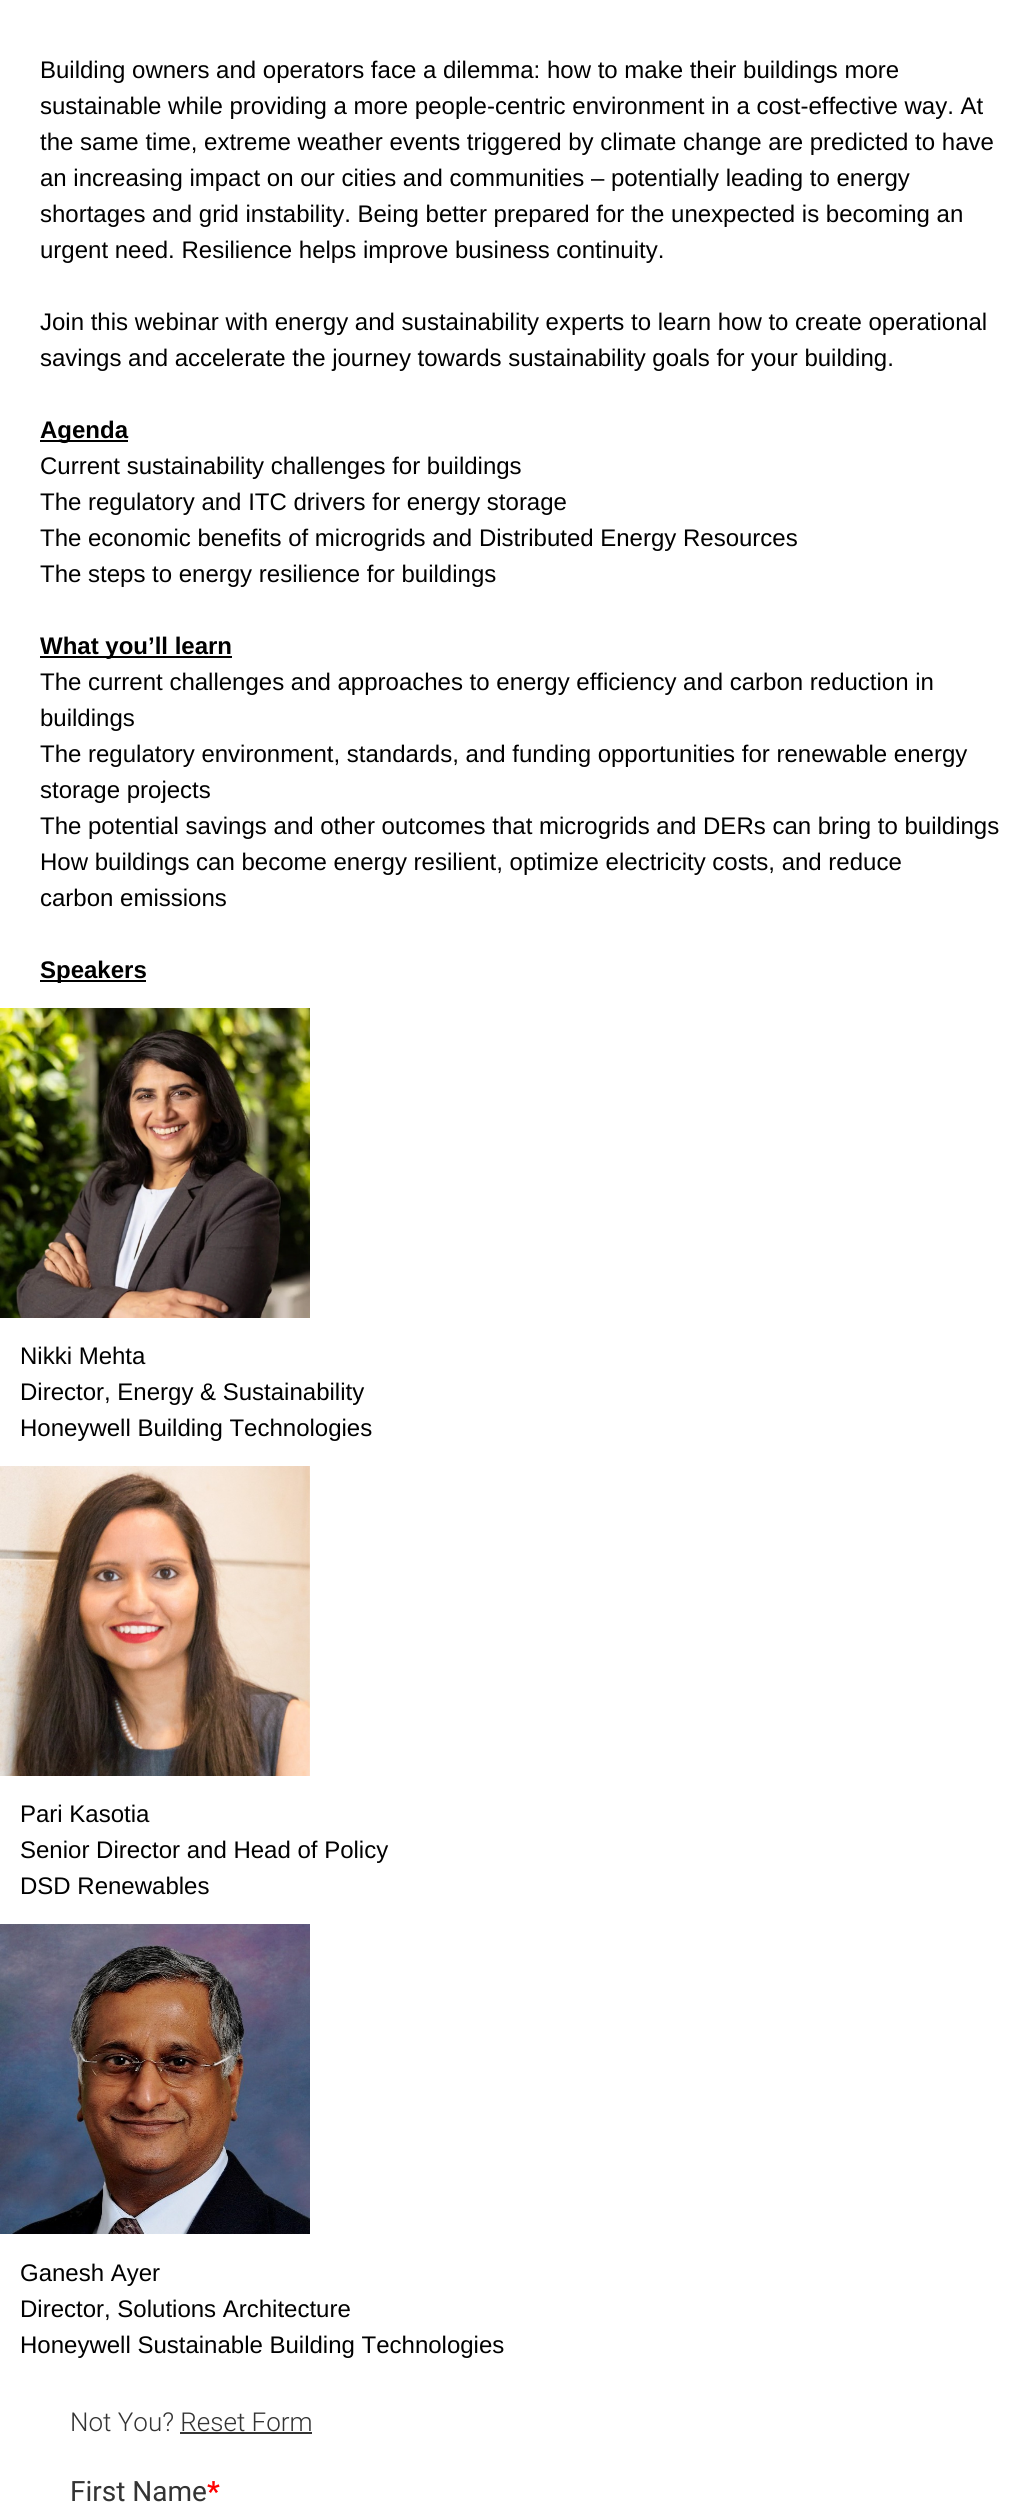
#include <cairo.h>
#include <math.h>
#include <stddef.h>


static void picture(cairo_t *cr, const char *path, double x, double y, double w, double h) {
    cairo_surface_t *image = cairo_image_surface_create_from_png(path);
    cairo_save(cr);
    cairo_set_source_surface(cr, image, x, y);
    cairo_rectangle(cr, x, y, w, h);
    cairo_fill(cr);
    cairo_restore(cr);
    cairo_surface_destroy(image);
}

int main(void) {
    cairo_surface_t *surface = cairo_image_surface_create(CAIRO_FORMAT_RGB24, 1034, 2511);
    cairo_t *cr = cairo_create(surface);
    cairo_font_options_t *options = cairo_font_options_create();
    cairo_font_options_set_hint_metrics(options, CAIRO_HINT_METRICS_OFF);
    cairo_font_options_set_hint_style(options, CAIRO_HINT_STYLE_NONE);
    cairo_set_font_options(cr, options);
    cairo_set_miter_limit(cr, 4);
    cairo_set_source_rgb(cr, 1, 1, 1);
    cairo_paint(cr);
    cairo_select_font_face(cr, "Liberation Sans", CAIRO_FONT_SLANT_NORMAL, CAIRO_FONT_WEIGHT_NORMAL);
    cairo_set_font_size(cr, 24);
    cairo_set_source_rgb(cr, 0, 0, 0);
    cairo_move_to(cr, 40, 78);
    cairo_show_text(cr, "Building owners and operators face a dilemma: how to make their buildings more");
    cairo_move_to(cr, 40, 114);
    cairo_show_text(cr, "sustainable while providing a more people-centric environment in a cost-effective way. At");
    cairo_move_to(cr, 40, 150);
    cairo_show_text(cr, "the same time, extreme weather events triggered by climate change are predicted to have");
    cairo_move_to(cr, 40, 186);
    cairo_show_text(cr, "an increasing impact on our cities and communities – potentially leading to energy");
    cairo_move_to(cr, 40, 222);
    cairo_show_text(cr, "shortages and grid instability. Being better prepared for the unexpected is becoming an");
    cairo_move_to(cr, 40, 258);
    cairo_show_text(cr, "urgent need. Resilience helps improve business continuity.");
    cairo_move_to(cr, 40, 330);
    cairo_show_text(cr, "Join this webinar with energy and sustainability experts to learn how to create operational");
    cairo_move_to(cr, 40, 366);
    cairo_show_text(cr, "savings and accelerate the journey towards sustainability goals for your building.");
    cairo_rectangle(cr, 40, 440, 88, 2);
    cairo_fill(cr);
    cairo_select_font_face(cr, "Liberation Sans", CAIRO_FONT_SLANT_NORMAL, CAIRO_FONT_WEIGHT_BOLD);
    cairo_move_to(cr, 40, 438);
    cairo_show_text(cr, "Agenda");
    cairo_select_font_face(cr, "Liberation Sans", CAIRO_FONT_SLANT_NORMAL, CAIRO_FONT_WEIGHT_NORMAL);
    cairo_move_to(cr, 40, 474);
    cairo_show_text(cr, "Current sustainability challenges for buildings");
    cairo_move_to(cr, 40, 510);
    cairo_show_text(cr, "The regulatory and ITC drivers for energy storage");
    cairo_move_to(cr, 40, 546);
    cairo_show_text(cr, "The economic benefits of microgrids and Distributed Energy Resources");
    cairo_move_to(cr, 40, 582);
    cairo_show_text(cr, "The steps to energy resilience for buildings");
    cairo_rectangle(cr, 40, 656, 192, 2);
    cairo_fill(cr);
    cairo_select_font_face(cr, "Liberation Sans", CAIRO_FONT_SLANT_NORMAL, CAIRO_FONT_WEIGHT_BOLD);
    cairo_move_to(cr, 40, 654);
    cairo_show_text(cr, "What you’ll learn");
    cairo_select_font_face(cr, "Liberation Sans", CAIRO_FONT_SLANT_NORMAL, CAIRO_FONT_WEIGHT_NORMAL);
    cairo_move_to(cr, 40, 690);
    cairo_show_text(cr, "The current challenges and approaches to energy efficiency and carbon reduction in");
    cairo_move_to(cr, 40, 726);
    cairo_show_text(cr, "buildings");
    cairo_move_to(cr, 40, 762);
    cairo_show_text(cr, "The regulatory environment, standards, and funding opportunities for renewable energy");
    cairo_move_to(cr, 40, 798);
    cairo_show_text(cr, "storage projects");
    cairo_move_to(cr, 40, 834);
    cairo_show_text(cr, "The potential savings and other outcomes that microgrids and DERs can bring to buildings");
    cairo_move_to(cr, 40, 870);
    cairo_show_text(cr, "How buildings can become energy resilient, optimize electricity costs, and reduce");
    cairo_move_to(cr, 40, 906);
    cairo_show_text(cr, "carbon emissions");
    cairo_rectangle(cr, 40, 980, 106, 2);
    cairo_fill(cr);
    cairo_select_font_face(cr, "Liberation Sans", CAIRO_FONT_SLANT_NORMAL, CAIRO_FONT_WEIGHT_BOLD);
    cairo_move_to(cr, 40, 978);
    cairo_show_text(cr, "Speakers");
    picture(cr, "img1.png", 0, 1008, 310, 310);
    cairo_select_font_face(cr, "Liberation Sans", CAIRO_FONT_SLANT_NORMAL, CAIRO_FONT_WEIGHT_NORMAL);
    cairo_move_to(cr, 20, 1364);
    cairo_show_text(cr, "Nikki Mehta");
    cairo_move_to(cr, 20, 1400);
    cairo_show_text(cr, "Director, Energy & Sustainability");
    cairo_move_to(cr, 20, 1436);
    cairo_show_text(cr, "Honeywell Building Technologies");
    picture(cr, "img2.png", 0, 1466, 310, 310);
    cairo_move_to(cr, 20, 1822);
    cairo_show_text(cr, "Pari Kasotia");
    cairo_move_to(cr, 20, 1858);
    cairo_show_text(cr, "Senior Director and Head of Policy");
    cairo_move_to(cr, 20, 1894);
    cairo_show_text(cr, "DSD Renewables");
    picture(cr, "img3.png", 0, 1924, 310, 310);
    cairo_move_to(cr, 20, 2281);
    cairo_show_text(cr, "Ganesh Ayer");
    cairo_move_to(cr, 20, 2317);
    cairo_show_text(cr, "Director, Solutions Architecture");
    cairo_move_to(cr, 20, 2353);
    cairo_show_text(cr, "Honeywell Sustainable Building Technologies");
    cairo_select_font_face(cr, "Roboto Light", CAIRO_FONT_SLANT_NORMAL, CAIRO_FONT_WEIGHT_NORMAL);
    cairo_set_font_size(cr, 26);
    cairo_set_source_rgb(cr, 0.2, 0.2, 0.2);
    cairo_move_to(cr, 70, 2431);
    cairo_show_text(cr, "Not You? Reset Form");
    cairo_rectangle(cr, 180, 2432, 132, 2);
    cairo_fill(cr);
    cairo_select_font_face(cr, "Roboto", CAIRO_FONT_SLANT_NORMAL, CAIRO_FONT_WEIGHT_NORMAL);
    cairo_set_font_size(cr, 28);
    cairo_move_to(cr, 70, 2501);
    cairo_show_text(cr, "First Name");
    cairo_select_font_face(cr, "Roboto", CAIRO_FONT_SLANT_NORMAL, CAIRO_FONT_WEIGHT_BOLD);
    cairo_set_source_rgb(cr, 1, 0, 0);
    cairo_move_to(cr, 207, 2501);
    cairo_show_text(cr, "*");
    cairo_surface_write_to_png(surface, "page.png");
    cairo_font_options_destroy(options);
    cairo_destroy(cr);
    cairo_surface_destroy(surface);
    return 0;
}
